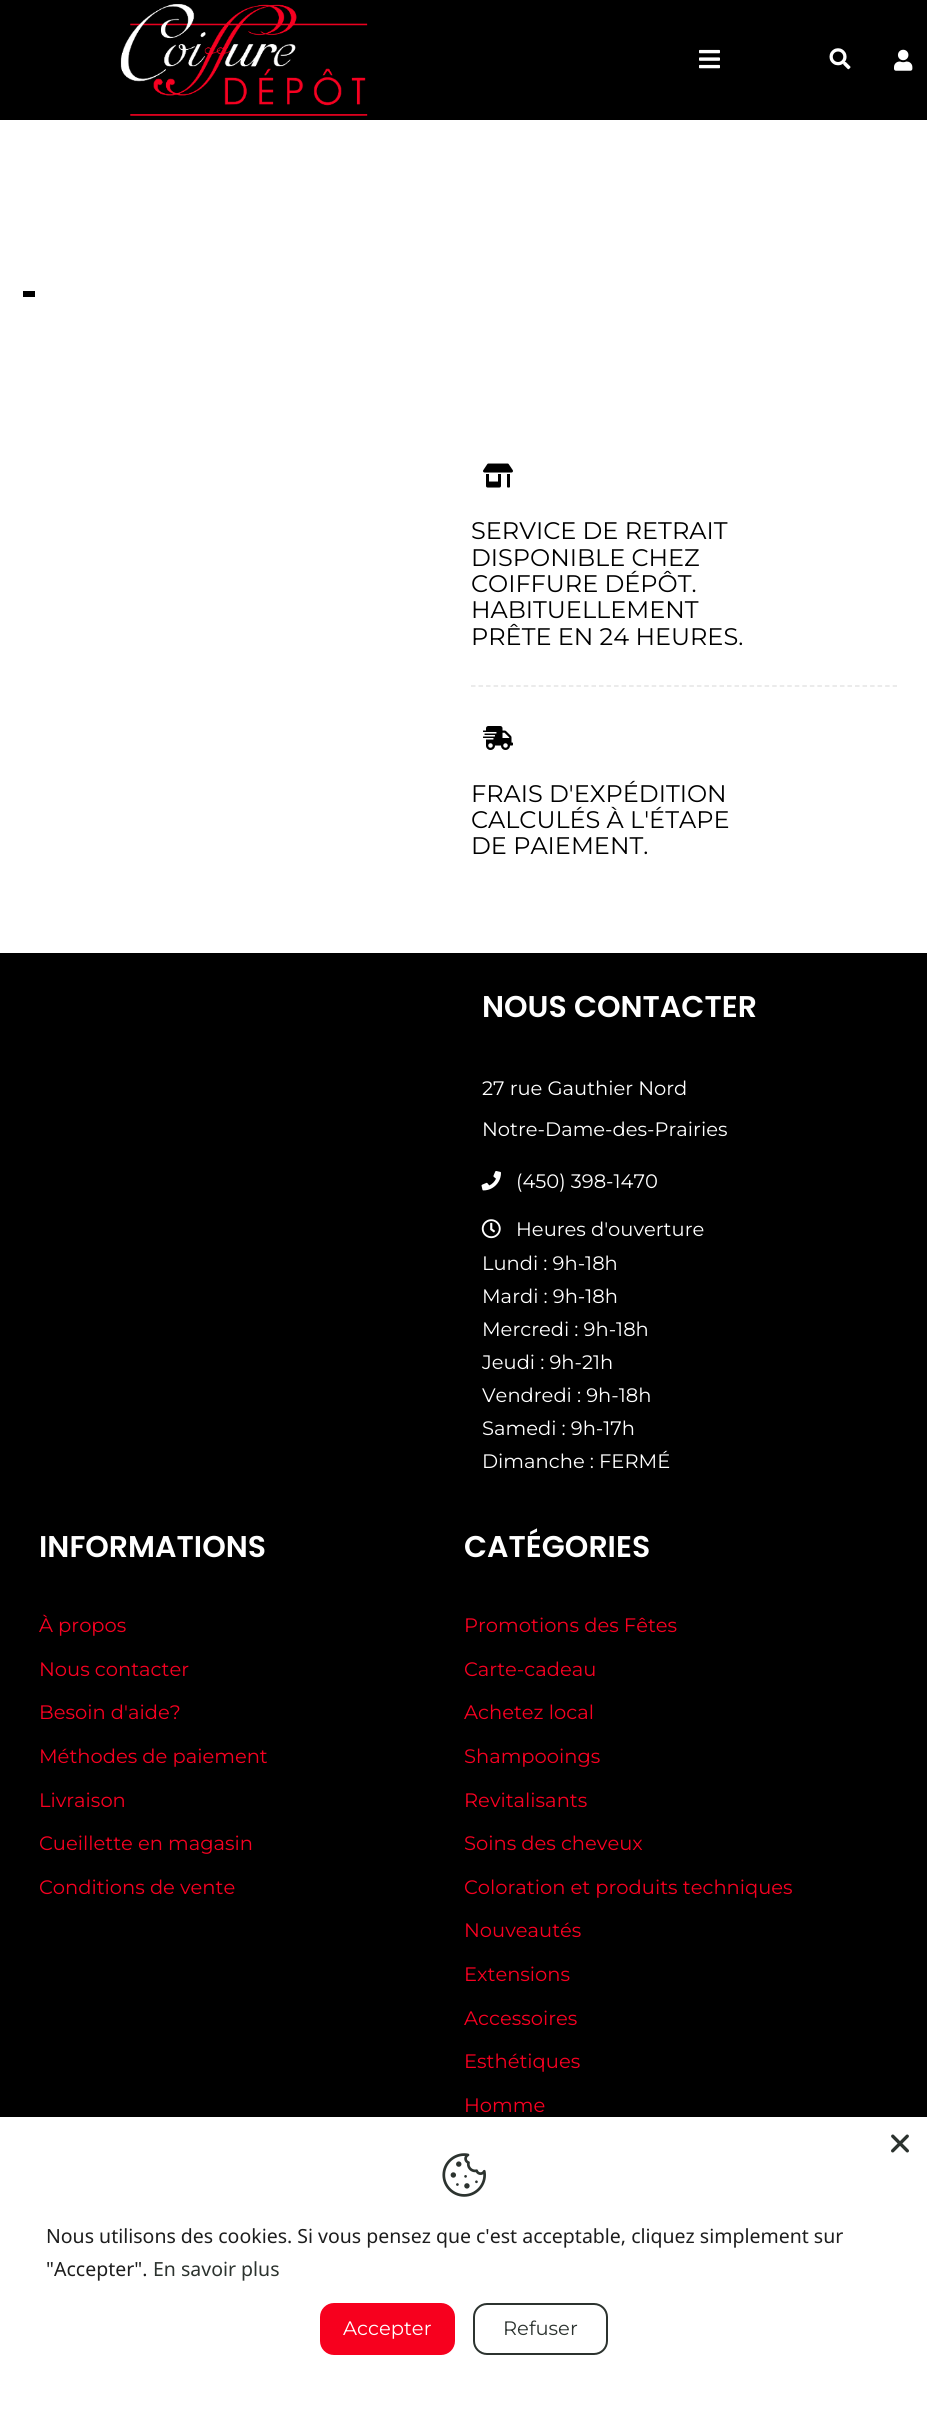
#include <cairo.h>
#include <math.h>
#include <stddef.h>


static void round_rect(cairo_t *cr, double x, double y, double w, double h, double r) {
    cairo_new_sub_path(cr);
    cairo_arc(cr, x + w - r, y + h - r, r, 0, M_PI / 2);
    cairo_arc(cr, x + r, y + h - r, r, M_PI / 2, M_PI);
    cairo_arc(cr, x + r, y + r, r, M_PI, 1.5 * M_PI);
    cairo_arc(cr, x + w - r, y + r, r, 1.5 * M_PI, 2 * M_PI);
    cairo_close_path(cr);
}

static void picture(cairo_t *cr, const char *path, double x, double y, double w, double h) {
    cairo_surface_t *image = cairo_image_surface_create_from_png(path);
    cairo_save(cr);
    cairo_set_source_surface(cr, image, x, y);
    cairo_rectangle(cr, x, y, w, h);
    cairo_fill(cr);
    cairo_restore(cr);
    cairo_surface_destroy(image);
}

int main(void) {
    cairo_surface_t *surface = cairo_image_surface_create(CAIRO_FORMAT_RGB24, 927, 2434);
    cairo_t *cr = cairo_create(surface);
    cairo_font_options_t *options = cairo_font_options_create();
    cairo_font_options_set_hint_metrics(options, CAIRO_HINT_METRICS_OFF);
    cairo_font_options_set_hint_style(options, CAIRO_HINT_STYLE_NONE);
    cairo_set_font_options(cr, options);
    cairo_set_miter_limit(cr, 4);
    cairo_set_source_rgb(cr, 1, 1, 1);
    cairo_paint(cr);
    cairo_set_source_rgb(cr, 0, 0, 0);
    cairo_rectangle(cr, 0, 0, 927, 120);
    cairo_fill(cr);
    picture(cr, "img1.png", 120, 4, 248, 112);
    picture(cr, "img2.png", 699, 49, 21, 20);
    picture(cr, "img3.png", 829, 48, 22, 22);
    picture(cr, "img4.png", 894, 49, 19, 22);
    cairo_rectangle(cr, 23, 291, 12, 6);
    cairo_fill(cr);
    cairo_new_path(cr);
    cairo_move_to(cr, 471, 686);
    cairo_line_to(cr, 897, 686);
    cairo_set_source_rgb(cr, 0.894, 0.894, 0.894);
    cairo_set_line_width(cr, 1.5);
    cairo_set_dash(cr, (double[]){4.5, 3.03}, 2, 0);
    cairo_stroke(cr);
    picture(cr, "img5.png", 483, 463, 30, 25);
    cairo_select_font_face(cr, "Montserrat Thin", CAIRO_FONT_SLANT_NORMAL, CAIRO_FONT_WEIGHT_NORMAL);
    cairo_set_font_size(cr, 24);
    cairo_set_source_rgb(cr, 0, 0, 0);
    cairo_move_to(cr, 471, 539);
    cairo_show_text(cr, "SERVICE DE RETRAIT");
    cairo_move_to(cr, 471, 566);
    cairo_show_text(cr, "DISPONIBLE CHEZ");
    cairo_move_to(cr, 471, 592);
    cairo_show_text(cr, "COIFFURE DÉPÔT.");
    cairo_move_to(cr, 471, 618);
    cairo_show_text(cr, "HABITUELLEMENT");
    cairo_move_to(cr, 471, 645);
    cairo_show_text(cr, "PRÊTE EN 24 HEURES.");
    picture(cr, "img6.png", 483, 726, 30, 24);
    cairo_move_to(cr, 471, 802);
    cairo_show_text(cr, "FRAIS D'EXPÉDITION");
    cairo_move_to(cr, 471, 828);
    cairo_show_text(cr, "CALCULÉS À L'ÉTAPE");
    cairo_move_to(cr, 471, 854);
    cairo_show_text(cr, "DE PAIEMENT.");
    cairo_rectangle(cr, 0, 953, 927, 1164);
    cairo_fill(cr);
    cairo_select_font_face(cr, "Poppins SemiBold", CAIRO_FONT_SLANT_NORMAL, CAIRO_FONT_WEIGHT_NORMAL);
    cairo_set_font_size(cr, 30);
    cairo_set_source_rgb(cr, 1, 1, 1);
    cairo_move_to(cr, 482, 1017);
    cairo_show_text(cr, "NOUS CONTACTER");
    cairo_select_font_face(cr, "Montserrat Thin", CAIRO_FONT_SLANT_NORMAL, CAIRO_FONT_WEIGHT_NORMAL);
    cairo_set_font_size(cr, 19.5);
    cairo_move_to(cr, 482, 1095);
    cairo_show_text(cr, "27 rue Gauthier Nord");
    cairo_move_to(cr, 482, 1136);
    cairo_show_text(cr, "Notre-Dame-des-Prairies");
    picture(cr, "img7.png", 481, 1171, 20, 20);
    cairo_move_to(cr, 516, 1188);
    cairo_show_text(cr, "(450) 398-1470");
    picture(cr, "img8.png", 481, 1219, 20, 20);
    cairo_move_to(cr, 516, 1236);
    cairo_show_text(cr, "Heures d'ouverture");
    cairo_move_to(cr, 482, 1270);
    cairo_show_text(cr, "Lundi : 9h-18h");
    cairo_move_to(cr, 482, 1303);
    cairo_show_text(cr, "Mardi : 9h-18h");
    cairo_move_to(cr, 482, 1336);
    cairo_show_text(cr, "Mercredi : 9h-18h");
    cairo_move_to(cr, 482, 1369);
    cairo_show_text(cr, "Jeudi : 9h-21h");
    cairo_move_to(cr, 482, 1402);
    cairo_show_text(cr, "Vendredi : 9h-18h");
    cairo_move_to(cr, 482, 1435);
    cairo_show_text(cr, "Samedi : 9h-17h");
    cairo_move_to(cr, 482, 1468);
    cairo_show_text(cr, "Dimanche : FERMÉ");
    cairo_select_font_face(cr, "Poppins SemiBold", CAIRO_FONT_SLANT_NORMAL, CAIRO_FONT_WEIGHT_NORMAL);
    cairo_set_font_size(cr, 30);
    cairo_move_to(cr, 39, 1557);
    cairo_show_text(cr, "INFORMATIONS");
    cairo_select_font_face(cr, "Montserrat Thin", CAIRO_FONT_SLANT_NORMAL, CAIRO_FONT_WEIGHT_NORMAL);
    cairo_set_font_size(cr, 19.5);
    cairo_set_source_rgb(cr, 0.969, 0, 0.129);
    cairo_move_to(cr, 39, 1632);
    cairo_show_text(cr, "À propos");
    cairo_move_to(cr, 39, 1676);
    cairo_show_text(cr, "Nous contacter");
    cairo_move_to(cr, 39, 1719);
    cairo_show_text(cr, "Besoin d'aide?");
    cairo_move_to(cr, 39, 1763);
    cairo_show_text(cr, "Méthodes de paiement");
    cairo_move_to(cr, 39, 1807);
    cairo_show_text(cr, "Livraison");
    cairo_move_to(cr, 39, 1850);
    cairo_show_text(cr, "Cueillette en magasin");
    cairo_move_to(cr, 39, 1894);
    cairo_show_text(cr, "Conditions de vente");
    cairo_select_font_face(cr, "Poppins SemiBold", CAIRO_FONT_SLANT_NORMAL, CAIRO_FONT_WEIGHT_NORMAL);
    cairo_set_font_size(cr, 30);
    cairo_set_source_rgb(cr, 1, 1, 1);
    cairo_move_to(cr, 464, 1557);
    cairo_show_text(cr, "CATÉGORIES");
    cairo_select_font_face(cr, "Montserrat Thin", CAIRO_FONT_SLANT_NORMAL, CAIRO_FONT_WEIGHT_NORMAL);
    cairo_set_font_size(cr, 19.5);
    cairo_set_source_rgb(cr, 0.969, 0, 0.129);
    cairo_move_to(cr, 464, 1632);
    cairo_show_text(cr, "Promotions des Fêtes");
    cairo_move_to(cr, 464, 1676);
    cairo_show_text(cr, "Carte-cadeau");
    cairo_move_to(cr, 464, 1719);
    cairo_show_text(cr, "Achetez local");
    cairo_move_to(cr, 464, 1763);
    cairo_show_text(cr, "Shampooings");
    cairo_move_to(cr, 464, 1807);
    cairo_show_text(cr, "Revitalisants");
    cairo_move_to(cr, 464, 1850);
    cairo_show_text(cr, "Soins des cheveux");
    cairo_move_to(cr, 464, 1894);
    cairo_show_text(cr, "Coloration et produits techniques");
    cairo_move_to(cr, 464, 1937);
    cairo_show_text(cr, "Nouveautés");
    cairo_move_to(cr, 464, 1981);
    cairo_show_text(cr, "Extensions");
    cairo_move_to(cr, 464, 2025);
    cairo_show_text(cr, "Accessoires");
    cairo_move_to(cr, 464, 2068);
    cairo_show_text(cr, "Esthétiques");
    cairo_move_to(cr, 464, 2112);
    cairo_show_text(cr, "Homme");
    picture(cr, "img9.png", 891, 2134, 18, 19);
    picture(cr, "img10.png", 442, 2153, 44, 44);
    cairo_select_font_face(cr, "Noto Sans", CAIRO_FONT_SLANT_NORMAL, CAIRO_FONT_WEIGHT_NORMAL);
    cairo_set_source_rgb(cr, 0.114, 0.114, 0.114);
    cairo_move_to(cr, 46, 2243);
    cairo_show_text(cr, "Nous utilisons des cookies. Si vous pensez que c'est acceptable, cliquez simplement sur");
    cairo_move_to(cr, 46, 2276);
    cairo_show_text(cr, "\"Accepter\".");
    cairo_set_source_rgb(cr, 0.173, 0.2, 0.184);
    cairo_move_to(cr, 153, 2276);
    cairo_show_text(cr, "En savoir plus");
    cairo_set_source_rgb(cr, 0.965, 0, 0.118);
    round_rect(cr, 320, 2303, 135, 52, 14);
    cairo_fill(cr);
    cairo_select_font_face(cr, "Montserrat Thin", CAIRO_FONT_SLANT_NORMAL, CAIRO_FONT_WEIGHT_NORMAL);
    cairo_set_source_rgb(cr, 1, 1, 1);
    cairo_move_to(cr, 343, 2335);
    cairo_show_text(cr, "Accepter");
    round_rect(cr, 474, 2304, 133, 50, 13);
    cairo_set_source_rgb(cr, 0.173, 0.2, 0.184);
    cairo_set_line_width(cr, 2);
    cairo_set_dash(cr, NULL, 0, 0);
    cairo_stroke(cr);
    cairo_move_to(cr, 503, 2335);
    cairo_show_text(cr, "Refuser");
    cairo_surface_write_to_png(surface, "page.png");
    cairo_font_options_destroy(options);
    cairo_destroy(cr);
    cairo_surface_destroy(surface);
    return 0;
}
